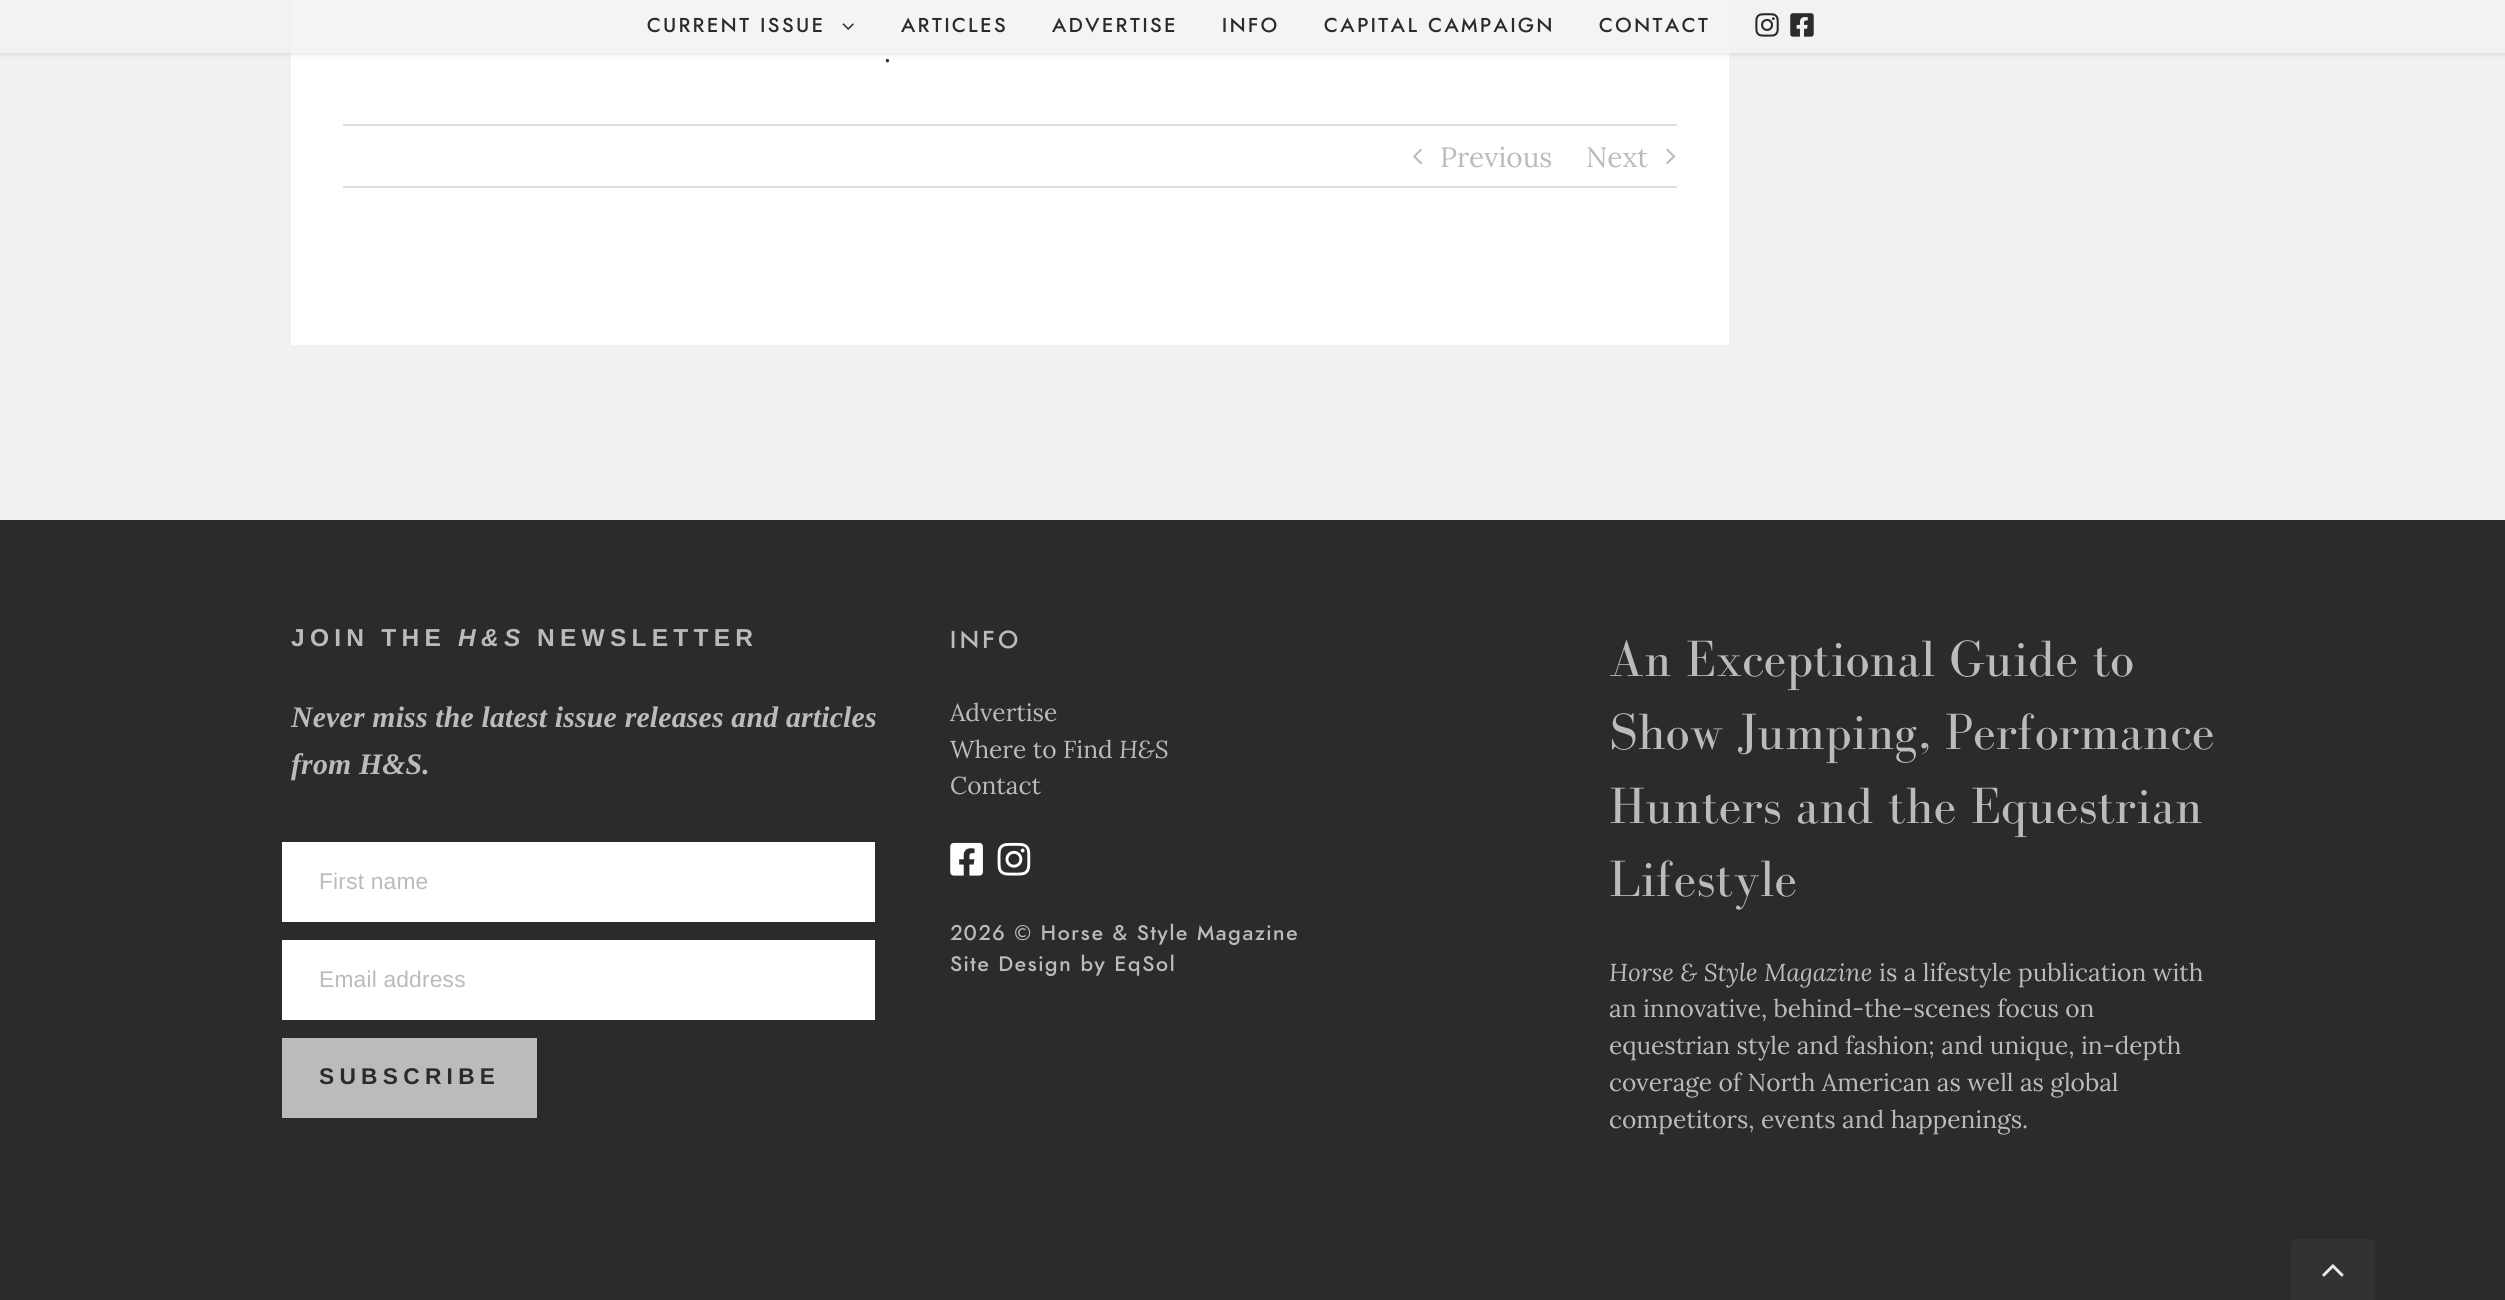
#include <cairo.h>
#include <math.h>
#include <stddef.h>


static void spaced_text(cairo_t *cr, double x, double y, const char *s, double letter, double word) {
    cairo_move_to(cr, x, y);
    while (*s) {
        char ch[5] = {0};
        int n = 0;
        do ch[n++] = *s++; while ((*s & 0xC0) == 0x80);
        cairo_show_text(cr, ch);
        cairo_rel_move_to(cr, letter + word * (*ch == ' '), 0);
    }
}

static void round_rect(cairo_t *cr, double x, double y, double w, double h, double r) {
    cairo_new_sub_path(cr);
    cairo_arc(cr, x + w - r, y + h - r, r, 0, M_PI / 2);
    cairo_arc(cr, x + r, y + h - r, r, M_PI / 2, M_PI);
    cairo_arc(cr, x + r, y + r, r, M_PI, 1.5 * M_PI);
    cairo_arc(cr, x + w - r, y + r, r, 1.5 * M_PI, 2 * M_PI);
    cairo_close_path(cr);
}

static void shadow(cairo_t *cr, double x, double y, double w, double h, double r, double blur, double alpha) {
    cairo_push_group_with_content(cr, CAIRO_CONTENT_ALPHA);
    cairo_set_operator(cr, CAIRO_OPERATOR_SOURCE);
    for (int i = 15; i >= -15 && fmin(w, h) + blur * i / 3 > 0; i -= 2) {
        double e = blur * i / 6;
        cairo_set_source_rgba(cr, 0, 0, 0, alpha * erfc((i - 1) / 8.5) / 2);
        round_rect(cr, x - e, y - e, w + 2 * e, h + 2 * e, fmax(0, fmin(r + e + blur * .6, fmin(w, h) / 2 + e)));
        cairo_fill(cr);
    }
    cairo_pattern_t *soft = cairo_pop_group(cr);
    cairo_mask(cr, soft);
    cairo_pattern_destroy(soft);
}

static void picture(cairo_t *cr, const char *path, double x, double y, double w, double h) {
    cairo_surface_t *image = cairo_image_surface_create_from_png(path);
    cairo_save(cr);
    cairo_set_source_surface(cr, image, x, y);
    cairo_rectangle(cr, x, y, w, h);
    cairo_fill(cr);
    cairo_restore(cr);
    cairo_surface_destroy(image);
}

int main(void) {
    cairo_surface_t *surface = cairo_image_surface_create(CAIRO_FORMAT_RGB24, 2505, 1300);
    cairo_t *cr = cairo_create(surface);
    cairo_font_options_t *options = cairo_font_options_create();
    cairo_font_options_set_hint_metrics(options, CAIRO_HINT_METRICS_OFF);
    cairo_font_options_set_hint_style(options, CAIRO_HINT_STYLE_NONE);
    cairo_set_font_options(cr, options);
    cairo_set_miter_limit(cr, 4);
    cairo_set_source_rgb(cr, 0.945, 0.945, 0.945);
    cairo_paint(cr);
    cairo_set_source_rgb(cr, 1, 1, 1);
    cairo_rectangle(cr, 291, 0, 1438, 345);
    cairo_fill(cr);
    cairo_save(cr);
    cairo_set_fill_rule(cr, CAIRO_FILL_RULE_EVEN_ODD);
    cairo_new_path(cr);
    cairo_move_to(cr, 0, 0);
    cairo_line_to(cr, 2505, 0);
    cairo_line_to(cr, 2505, 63);
    cairo_line_to(cr, 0, 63);
    cairo_close_path(cr);
    cairo_move_to(cr, 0, 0);
    cairo_line_to(cr, 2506, 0);
    cairo_line_to(cr, 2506, 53);
    cairo_line_to(cr, 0, 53);
    cairo_close_path(cr);
    cairo_clip(cr);
    cairo_set_source_rgb(cr, 0, 0, 0);
    shadow(cr, 0, 2, 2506, 52, 0, 2.5, 0.12);
    cairo_restore(cr);
    cairo_set_source_rgba(cr, 0.949, 0.949, 0.949, 0.85);
    cairo_rectangle(cr, 0, 0, 2505, 53);
    cairo_fill(cr);
    cairo_select_font_face(cr, "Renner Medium", CAIRO_FONT_SLANT_NORMAL, CAIRO_FONT_WEIGHT_NORMAL);
    cairo_set_font_size(cr, 20.1);
    cairo_set_source_rgb(cr, 0.169, 0.169, 0.169);
    spaced_text(cr, 647, 32, "CURRENT ISSUE", 2.6, 0);
    picture(cr, "img1.png", 842, 23, 12, 7);
    spaced_text(cr, 901, 32, "ARTICLES", 2.6, 0);
    spaced_text(cr, 1052, 32, "ADVERTISE", 2.6, 0);
    spaced_text(cr, 1222, 32, "INFO", 2.6, 0);
    spaced_text(cr, 1324, 32, "CAPITAL CAMPAIGN", 2.6, 0);
    spaced_text(cr, 1599, 32, "CONTACT", 2.6, 0);
    picture(cr, "img2.png", 1755, 13, 24, 24);
    picture(cr, "img3.png", 1790, 13, 24, 24);
    cairo_select_font_face(cr, "Lora", CAIRO_FONT_SLANT_NORMAL, CAIRO_FONT_WEIGHT_NORMAL);
    cairo_set_font_size(cr, 28);
    cairo_set_source_rgb(cr, 0.2, 0.2, 0.2);
    cairo_move_to(cr, 884, 62);
    cairo_show_text(cr, ".");
    cairo_set_source_rgb(cr, 0.878, 0.871, 0.871);
    cairo_rectangle(cr, 343, 124, 1334, 2);
    cairo_fill(cr);
    cairo_rectangle(cr, 343, 186, 1334, 2);
    cairo_fill(cr);
    picture(cr, "img4.png", 1413, 148, 9, 17);
    cairo_set_source_rgb(cr, 0.729, 0.733, 0.737);
    cairo_move_to(cr, 1440, 167);
    cairo_show_text(cr, "Previous");
    cairo_move_to(cr, 1586, 167);
    cairo_show_text(cr, "Next");
    picture(cr, "img5.png", 1666, 148, 10, 17);
    cairo_set_source_rgb(cr, 0.169, 0.169, 0.169);
    cairo_rectangle(cr, 0, 520, 2505, 780);
    cairo_fill(cr);
    cairo_select_font_face(cr, "Liberation Sans", CAIRO_FONT_SLANT_NORMAL, CAIRO_FONT_WEIGHT_BOLD);
    cairo_set_font_size(cr, 24.5);
    cairo_set_source_rgb(cr, 0.729, 0.733, 0.737);
    spaced_text(cr, 291, 646, "JOIN THE", 5.25, 0);
    cairo_select_font_face(cr, "Liberation Sans", CAIRO_FONT_SLANT_ITALIC, CAIRO_FONT_WEIGHT_BOLD);
    spaced_text(cr, 458, 646, "H&S", 5.25, 0);
    cairo_select_font_face(cr, "Liberation Sans", CAIRO_FONT_SLANT_NORMAL, CAIRO_FONT_WEIGHT_BOLD);
    spaced_text(cr, 537, 646, "NEWSLETTER", 5.25, 0);
    cairo_select_font_face(cr, "Liberation Serif", CAIRO_FONT_SLANT_ITALIC, CAIRO_FONT_WEIGHT_BOLD);
    cairo_set_font_size(cr, 29.75);
    spaced_text(cr, 291, 727, "Never miss the latest issue releases and articles", 0.2, 0);
    spaced_text(cr, 291, 774, "from H&S.", 0.2, 0);
    cairo_set_source_rgb(cr, 1, 1, 1);
    cairo_rectangle(cr, 282, 842, 593, 80);
    cairo_fill(cr);
    cairo_select_font_face(cr, "Liberation Sans", CAIRO_FONT_SLANT_NORMAL, CAIRO_FONT_WEIGHT_NORMAL);
    cairo_set_font_size(cr, 22.75);
    cairo_set_source_rgb(cr, 0.729, 0.733, 0.737);
    spaced_text(cr, 319, 889, "First name", 0.2, 0);
    cairo_set_source_rgb(cr, 1, 1, 1);
    cairo_rectangle(cr, 282, 940, 593, 80);
    cairo_fill(cr);
    cairo_set_source_rgb(cr, 0.729, 0.733, 0.737);
    spaced_text(cr, 319, 987, "Email address", 0.2, 0);
    cairo_rectangle(cr, 282, 1038, 255, 80);
    cairo_fill(cr);
    cairo_select_font_face(cr, "Liberation Sans", CAIRO_FONT_SLANT_NORMAL, CAIRO_FONT_WEIGHT_BOLD);
    cairo_set_source_rgb(cr, 0.169, 0.169, 0.169);
    spaced_text(cr, 319, 1084, "SUBSCRIBE", 5.25, 0);
    cairo_select_font_face(cr, "Renner Medium", CAIRO_FONT_SLANT_NORMAL, CAIRO_FONT_WEIGHT_NORMAL);
    cairo_set_font_size(cr, 24.5);
    cairo_set_source_rgb(cr, 0.729, 0.733, 0.737);
    spaced_text(cr, 950, 648, "INFO", 3.5, 0);
    cairo_select_font_face(cr, "Lora", CAIRO_FONT_SLANT_NORMAL, CAIRO_FONT_WEIGHT_NORMAL);
    cairo_move_to(cr, 950, 721);
    cairo_show_text(cr, "Advertise");
    cairo_move_to(cr, 950, 758);
    cairo_show_text(cr, "Where to Find");
    cairo_select_font_face(cr, "Lora", CAIRO_FONT_SLANT_ITALIC, CAIRO_FONT_WEIGHT_NORMAL);
    cairo_move_to(cr, 1119, 758);
    cairo_show_text(cr, "H&S");
    cairo_select_font_face(cr, "Lora", CAIRO_FONT_SLANT_NORMAL, CAIRO_FONT_WEIGHT_NORMAL);
    cairo_move_to(cr, 950, 794);
    cairo_show_text(cr, "Contact");
    picture(cr, "img6.png", 950, 842, 33, 34);
    picture(cr, "img7.png", 997, 842, 34, 34);
    cairo_select_font_face(cr, "Renner Medium", CAIRO_FONT_SLANT_NORMAL, CAIRO_FONT_WEIGHT_NORMAL);
    cairo_set_font_size(cr, 21);
    spaced_text(cr, 950, 940, "2026 © Horse & Style Magazine", 1.75, 0);
    spaced_text(cr, 950, 971, "Site Design by EqSol", 1.75, 0);
    cairo_select_font_face(cr, "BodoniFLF", CAIRO_FONT_SLANT_NORMAL, CAIRO_FONT_WEIGHT_NORMAL);
    cairo_set_font_size(cr, 52.5);
    cairo_move_to(cr, 1609, 676);
    cairo_show_text(cr, "An Exceptional Guide to");
    cairo_move_to(cr, 1609, 749);
    cairo_show_text(cr, "Show Jumping, Performance");
    cairo_move_to(cr, 1609, 823);
    cairo_show_text(cr, "Hunters and the Equestrian");
    cairo_move_to(cr, 1609, 896);
    cairo_show_text(cr, "Lifestyle");
    cairo_select_font_face(cr, "Lora", CAIRO_FONT_SLANT_ITALIC, CAIRO_FONT_WEIGHT_NORMAL);
    cairo_set_font_size(cr, 24.5);
    cairo_move_to(cr, 1609, 981);
    cairo_show_text(cr, "Horse & Style Magazine");
    cairo_select_font_face(cr, "Lora", CAIRO_FONT_SLANT_NORMAL, CAIRO_FONT_WEIGHT_NORMAL);
    cairo_move_to(cr, 1879, 981);
    cairo_show_text(cr, "is a lifestyle publication with");
    cairo_move_to(cr, 1609, 1017);
    cairo_show_text(cr, "an innovative, behind-the-scenes focus on");
    cairo_move_to(cr, 1609, 1054);
    cairo_show_text(cr, "equestrian style and fashion; and unique, in-depth");
    cairo_move_to(cr, 1609, 1091);
    cairo_show_text(cr, "coverage of North American as well as global");
    cairo_move_to(cr, 1609, 1128);
    cairo_show_text(cr, "competitors, events and happenings.");
    cairo_set_source_rgb(cr, 0.196, 0.196, 0.196);
    cairo_new_path(cr);
    cairo_move_to(cr, 2298, 1239);
    cairo_line_to(cr, 2368, 1239);
    cairo_curve_to(cr, 2372, 1239, 2375, 1242, 2375, 1246);
    cairo_line_to(cr, 2375, 1300);
    cairo_line_to(cr, 2291, 1300);
    cairo_line_to(cr, 2291, 1246);
    cairo_curve_to(cr, 2291, 1242, 2294, 1239, 2298, 1239);
    cairo_close_path(cr);
    cairo_fill(cr);
    picture(cr, "img8.png", 2322, 1264, 22, 13);
    cairo_surface_write_to_png(surface, "page.png");
    cairo_font_options_destroy(options);
    cairo_destroy(cr);
    cairo_surface_destroy(surface);
    return 0;
}
